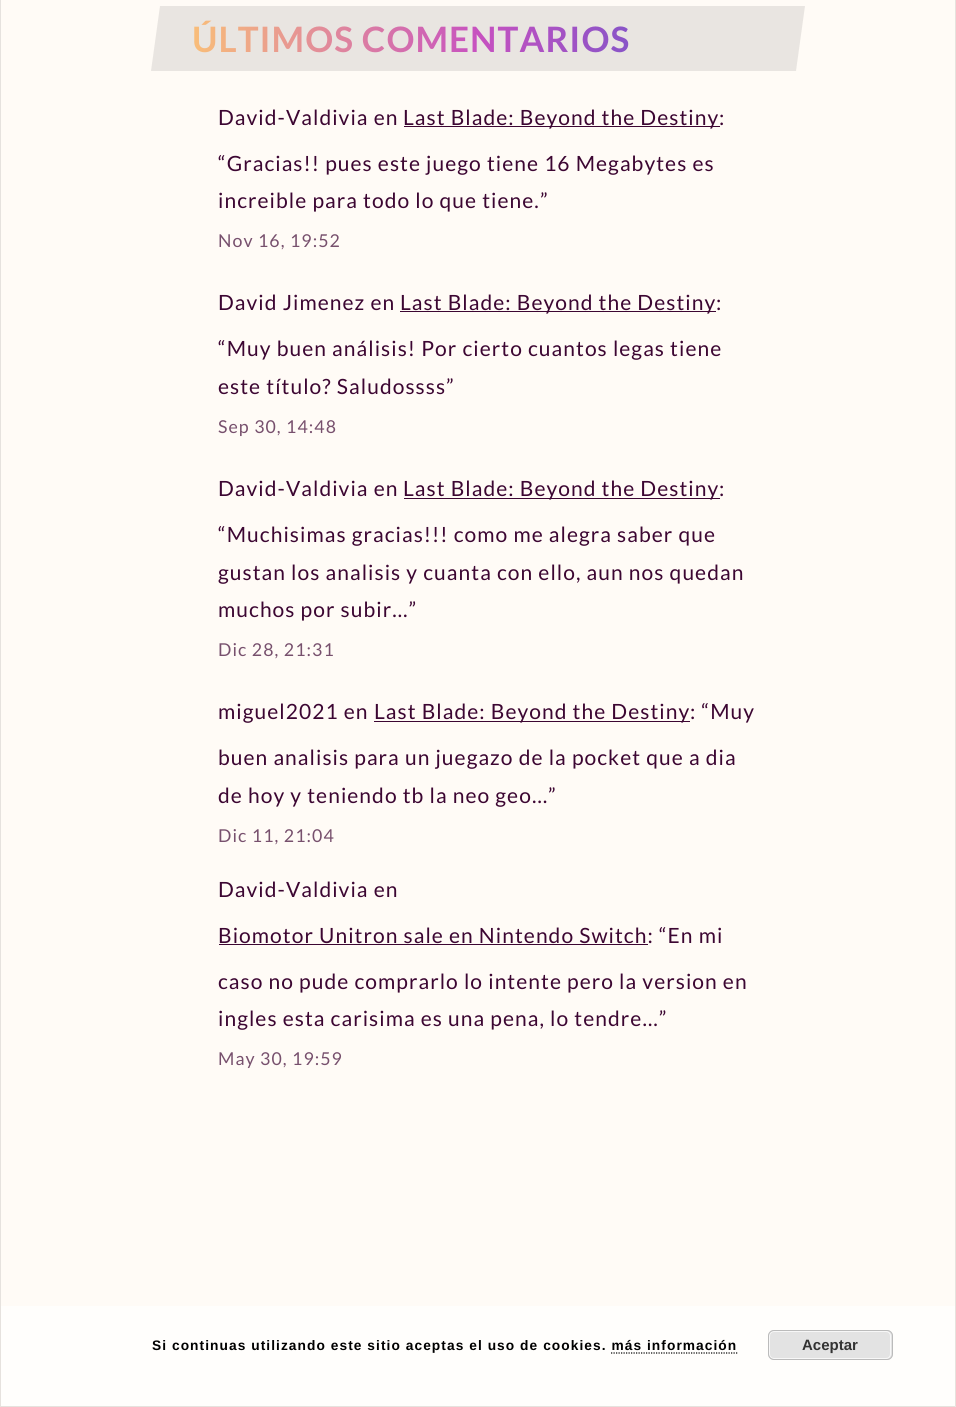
#include <cairo.h>
#include <math.h>
#include <stddef.h>


static void spaced_text(cairo_t *cr, double x, double y, const char *s, double letter, double word) {
    cairo_move_to(cr, x, y);
    while (*s) {
        char ch[5] = {0};
        int n = 0;
        do ch[n++] = *s++; while ((*s & 0xC0) == 0x80);
        cairo_show_text(cr, ch);
        cairo_rel_move_to(cr, letter + word * (*ch == ' '), 0);
    }
}

static void round_rect(cairo_t *cr, double x, double y, double w, double h, double r) {
    cairo_new_sub_path(cr);
    cairo_arc(cr, x + w - r, y + h - r, r, 0, M_PI / 2);
    cairo_arc(cr, x + r, y + h - r, r, M_PI / 2, M_PI);
    cairo_arc(cr, x + r, y + r, r, M_PI, 1.5 * M_PI);
    cairo_arc(cr, x + w - r, y + r, r, 1.5 * M_PI, 2 * M_PI);
    cairo_close_path(cr);
}

int main(void) {
    cairo_surface_t *surface = cairo_image_surface_create(CAIRO_FORMAT_RGB24, 956, 1407);
    cairo_t *cr = cairo_create(surface);
    cairo_font_options_t *options = cairo_font_options_create();
    cairo_font_options_set_hint_metrics(options, CAIRO_HINT_METRICS_OFF);
    cairo_font_options_set_hint_style(options, CAIRO_HINT_STYLE_NONE);
    cairo_set_font_options(cr, options);
    cairo_set_miter_limit(cr, 4);
    cairo_pattern_t *gradient;
    cairo_set_source_rgb(cr, 1, 0.984, 0.961);
    cairo_paint(cr);
    cairo_set_source_rgb(cr, 0.902, 0.886, 0.867);
    cairo_new_path(cr);
    cairo_move_to(cr, 956, -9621);
    cairo_line_to(cr, 956, 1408);
    cairo_line_to(cr, 955, 1406);
    cairo_line_to(cr, 955, -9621);
    cairo_close_path(cr);
    cairo_fill(cr);
    cairo_new_path(cr);
    cairo_move_to(cr, 956, 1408);
    cairo_line_to(cr, 0, 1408);
    cairo_line_to(cr, 1, 1406);
    cairo_line_to(cr, 955, 1406);
    cairo_close_path(cr);
    cairo_fill(cr);
    cairo_set_source_rgba(cr, 0, 0, 0, 0.1);
    cairo_new_path(cr);
    cairo_move_to(cr, 0, 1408);
    cairo_line_to(cr, 0, -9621);
    cairo_line_to(cr, 1, -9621);
    cairo_line_to(cr, 1, 1406);
    cairo_close_path(cr);
    cairo_fill(cr);
    cairo_set_source_rgba(cr, 0.125, 0.125, 0.125, 0.1);
    cairo_new_path(cr);
    cairo_move_to(cr, 160, 6);
    cairo_line_to(cr, 805, 6);
    cairo_line_to(cr, 796, 71);
    cairo_line_to(cr, 151, 71);
    cairo_close_path(cr);
    cairo_fill(cr);
    cairo_select_font_face(cr, "Lato", CAIRO_FONT_SLANT_NORMAL, CAIRO_FONT_WEIGHT_BOLD);
    cairo_set_font_size(cr, 35);
    gradient = cairo_pattern_create_linear(156, 38, 801, 38);
    cairo_pattern_add_color_stop_rgba(gradient, 0, 1, 0.796, 0.439, 1);
    cairo_pattern_add_color_stop_rgba(gradient, 0.5, 0.78, 0.318, 0.753, 1);
    cairo_pattern_add_color_stop_rgba(gradient, 1, 0.255, 0.345, 0.816, 1);
    cairo_set_source(cr, gradient);
    cairo_pattern_destroy(gradient);
    spaced_text(cr, 192, 52, "ÚLTIMOS COMENTARIOS", 1.05, 0);
    cairo_select_font_face(cr, "Lato", CAIRO_FONT_SLANT_NORMAL, CAIRO_FONT_WEIGHT_NORMAL);
    cairo_set_font_size(cr, 21);
    cairo_set_source_rgb(cr, 0.235, 0.027, 0.196);
    spaced_text(cr, 218, 125, "David-Valdivia en", 1.05, 0);
    cairo_rectangle(cr, 404, 126, 316, 1);
    cairo_fill(cr);
    spaced_text(cr, 403, 125, "Last Blade: Beyond the Destiny", 1.05, 0);
    spaced_text(cr, 719, 125, ":", 1.05, 0);
    spaced_text(cr, 218, 171, "“Gracias!! pues este juego tiene 16 Megabytes es", 1.05, 0);
    spaced_text(cr, 218, 208, "increible para todo lo que tiene.", 1.05, 0);
    spaced_text(cr, 540, 208, "”", 1.05, 0);
    cairo_set_font_size(cr, 17.75);
    cairo_set_source_rgb(cr, 0.467, 0.314, 0.427);
    spaced_text(cr, 218, 247, "Nov 16, 19:52", 1.05, 0);
    cairo_set_font_size(cr, 21);
    cairo_set_source_rgb(cr, 0.235, 0.027, 0.196);
    spaced_text(cr, 218, 310, "David Jimenez en", 1.05, 0);
    cairo_rectangle(cr, 400, 311, 316, 1);
    cairo_fill(cr);
    spaced_text(cr, 400, 310, "Last Blade: Beyond the Destiny", 1.05, 0);
    spaced_text(cr, 716, 310, ":", 1.05, 0);
    spaced_text(cr, 218, 356, "“Muy buen análisis! Por cierto cuantos legas tiene", 1.05, 0);
    spaced_text(cr, 218, 394, "este título? Saludossss”", 1.05, 0);
    cairo_set_font_size(cr, 17.75);
    cairo_set_source_rgb(cr, 0.467, 0.314, 0.427);
    spaced_text(cr, 218, 433, "Sep 30, 14:48", 1.05, 0);
    cairo_set_font_size(cr, 21);
    cairo_set_source_rgb(cr, 0.235, 0.027, 0.196);
    spaced_text(cr, 218, 496, "David-Valdivia en", 1.05, 0);
    cairo_rectangle(cr, 404, 498, 316, 1);
    cairo_fill(cr);
    spaced_text(cr, 403, 496, "Last Blade: Beyond the Destiny", 1.05, 0);
    spaced_text(cr, 719, 496, ":", 1.05, 0);
    spaced_text(cr, 218, 542, "“Muchisimas gracias!!! como me alegra saber que", 1.05, 0);
    spaced_text(cr, 218, 580, "gustan los analisis y cuanta con ello, aun nos quedan", 1.05, 0);
    spaced_text(cr, 218, 617, "muchos por subir…”", 1.05, 0);
    cairo_set_font_size(cr, 17.75);
    cairo_set_source_rgb(cr, 0.467, 0.314, 0.427);
    spaced_text(cr, 218, 656, "Dic 28, 21:31", 1.05, 0);
    cairo_set_font_size(cr, 21);
    cairo_set_source_rgb(cr, 0.235, 0.027, 0.196);
    spaced_text(cr, 218, 719, "miguel2021 en", 1.05, 0);
    cairo_rectangle(cr, 374, 721, 316, 1);
    cairo_fill(cr);
    spaced_text(cr, 374, 719, "Last Blade: Beyond the Destiny", 1.05, 0);
    spaced_text(cr, 690, 719, ": “Muy", 1.05, 0);
    spaced_text(cr, 218, 765, "buen analisis para un juegazo de la pocket que a dia", 1.05, 0);
    spaced_text(cr, 218, 803, "de hoy y teniendo tb la neo geo…", 1.05, 0);
    spaced_text(cr, 548, 803, "”", 1.05, 0);
    cairo_set_font_size(cr, 17.75);
    cairo_set_source_rgb(cr, 0.467, 0.314, 0.427);
    spaced_text(cr, 218, 842, "Dic 11, 21:04", 1.05, 0);
    cairo_set_font_size(cr, 21);
    cairo_set_source_rgb(cr, 0.235, 0.027, 0.196);
    spaced_text(cr, 218, 897, "David-Valdivia en", 1.05, 0);
    spaced_text(cr, 218, 943, "Biomotor Unitron sale en Nintendo Switch: “En mi", 1.05, 0);
    cairo_rectangle(cr, 219, 944, 429, 1);
    cairo_fill(cr);
    spaced_text(cr, 218, 989, "caso no pude comprarlo lo intente pero la version en", 1.05, 0);
    spaced_text(cr, 218, 1026, "ingles esta carisima es una pena, lo tendre…”", 1.05, 0);
    cairo_set_font_size(cr, 17.75);
    cairo_set_source_rgb(cr, 0.467, 0.314, 0.427);
    spaced_text(cr, 218, 1065, "May 30, 19:59", 1.05, 0);
    cairo_set_source_rgb(cr, 1, 0.996, 0.988);
    cairo_rectangle(cr, 1, 1306, 954, 100);
    cairo_fill(cr);
    cairo_select_font_face(cr, "Liberation Sans", CAIRO_FONT_SLANT_NORMAL, CAIRO_FONT_WEIGHT_BOLD);
    cairo_set_font_size(cr, 13.75);
    cairo_set_source_rgb(cr, 0, 0, 0);
    spaced_text(cr, 152, 1350, "Si continuas utilizando este sitio aceptas el uso de cookies. más información", 1.05, 0);
    cairo_set_source_rgb(cr, 0.89, 0.89, 0.89);
    round_rect(cr, 768, 1330, 125, 30, 6);
    cairo_fill(cr);
    round_rect(cr, 769.5, 1331.5, 121, 27, 4.5);
    cairo_set_source_rgb(cr, 0.965, 0.965, 0.965);
    cairo_set_line_width(cr, 1);
    cairo_stroke(cr);
    round_rect(cr, 768.5, 1330.5, 124, 29, 5.5);
    cairo_set_source_rgb(cr, 0.733, 0.733, 0.733);
    cairo_stroke(cr);
    cairo_set_font_size(cr, 15);
    cairo_set_source_rgb(cr, 0.2, 0.2, 0.2);
    cairo_move_to(cr, 802, 1350);
    cairo_show_text(cr, "Aceptar");
    cairo_new_path(cr);
    cairo_move_to(cr, 611, 1353);
    cairo_line_to(cr, 737.5, 1353);
    cairo_set_source_rgb(cr, 0, 0, 0);
    cairo_set_line_width(cr, 1.2);
    cairo_set_dash(cr, (double[]){1.25, 1.25}, 2, 0);
    cairo_stroke(cr);
    cairo_surface_write_to_png(surface, "page.png");
    cairo_font_options_destroy(options);
    cairo_destroy(cr);
    cairo_surface_destroy(surface);
    return 0;
}
